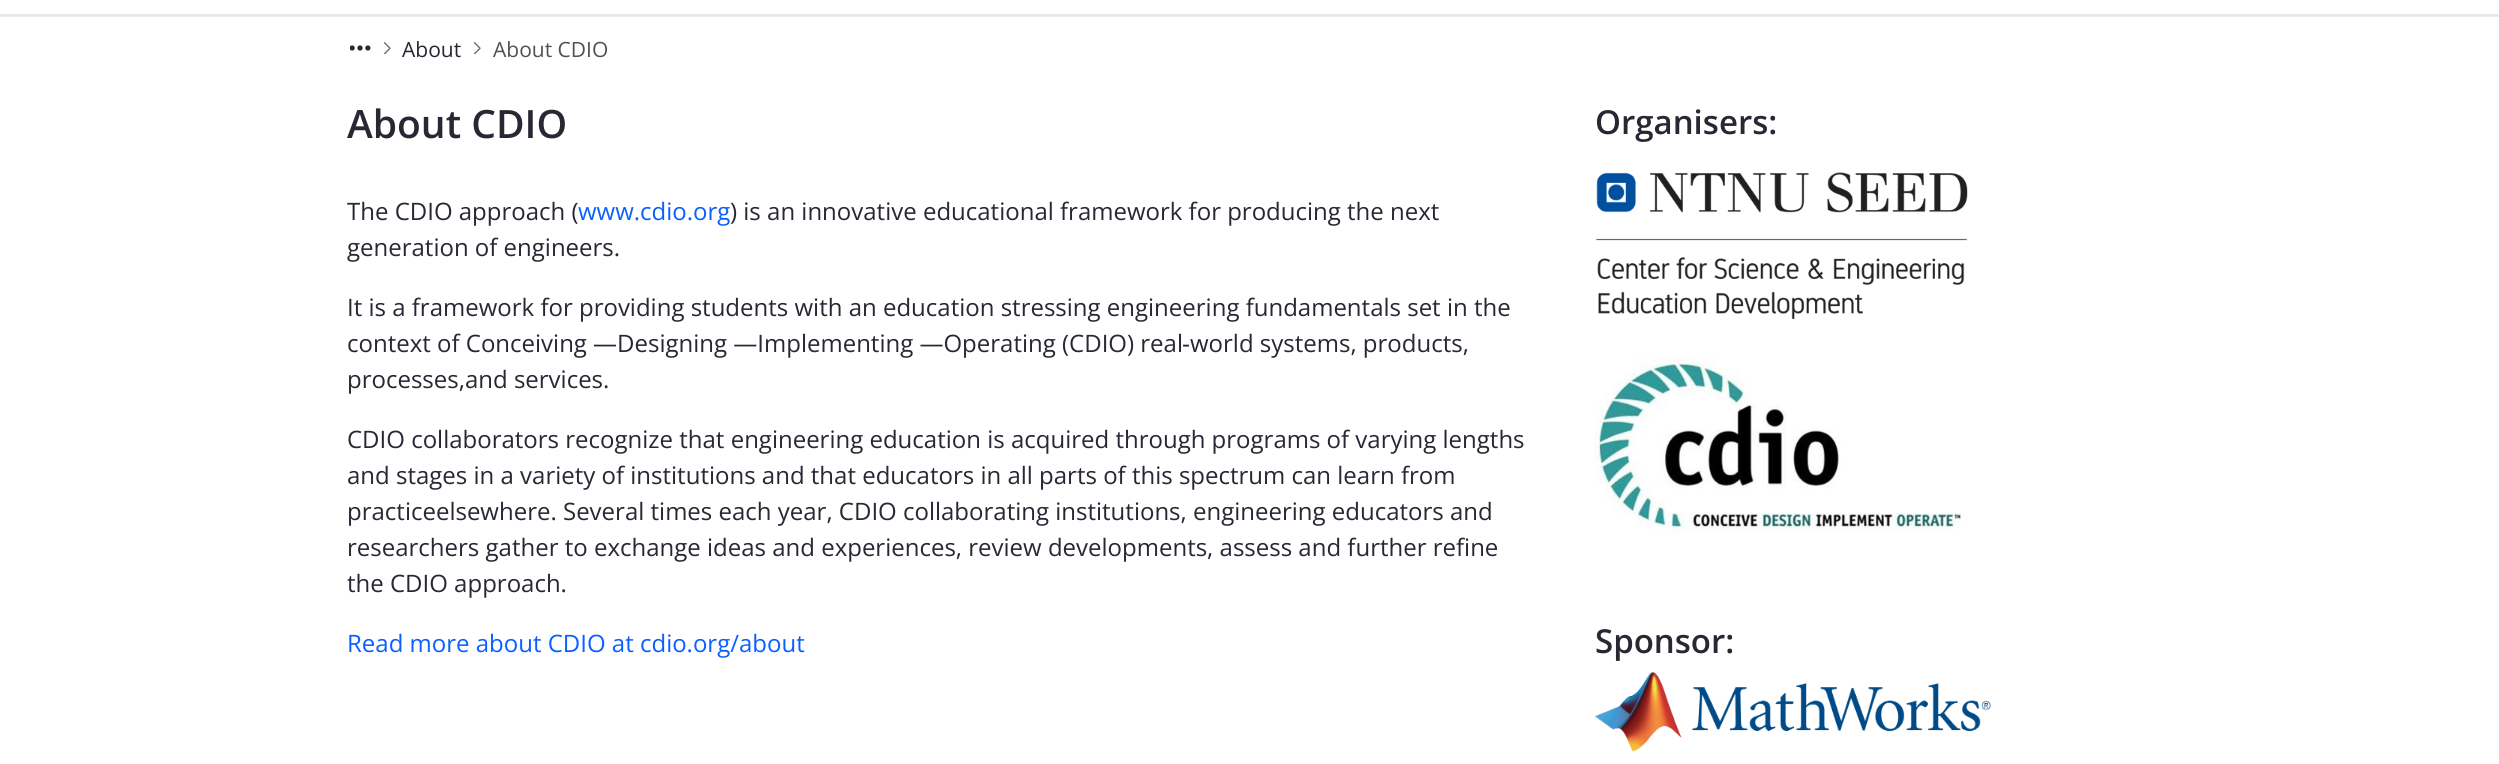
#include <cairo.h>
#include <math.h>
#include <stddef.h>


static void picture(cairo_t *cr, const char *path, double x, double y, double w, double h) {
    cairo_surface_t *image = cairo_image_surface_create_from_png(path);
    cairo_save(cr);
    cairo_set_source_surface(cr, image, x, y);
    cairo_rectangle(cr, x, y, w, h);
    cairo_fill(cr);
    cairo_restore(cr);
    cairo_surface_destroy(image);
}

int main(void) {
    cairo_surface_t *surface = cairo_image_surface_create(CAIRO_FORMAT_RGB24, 2499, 764);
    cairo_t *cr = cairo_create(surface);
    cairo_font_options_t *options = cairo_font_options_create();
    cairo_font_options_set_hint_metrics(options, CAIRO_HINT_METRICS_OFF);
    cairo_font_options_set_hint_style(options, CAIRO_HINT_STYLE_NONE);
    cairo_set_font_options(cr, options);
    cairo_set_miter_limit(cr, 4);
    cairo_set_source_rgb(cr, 1, 1, 1);
    cairo_paint(cr);
    cairo_set_source_rgba(cr, 0, 0, 0, 0.08);
    cairo_rectangle(cr, 0, 16, 2499, 1);
    cairo_fill(cr);
    cairo_set_source_rgb(cr, 0.906, 0.906, 0.929);
    cairo_rectangle(cr, 0, 14, 2499, 2);
    cairo_fill(cr);
    picture(cr, "img1.png", 350, 45, 21, 6);
    picture(cr, "img2.png", 383, 42, 8, 12);
    cairo_select_font_face(cr, "Open Sans", CAIRO_FONT_SLANT_NORMAL, CAIRO_FONT_WEIGHT_NORMAL);
    cairo_set_font_size(cr, 21);
    cairo_set_source_rgb(cr, 0.153, 0.157, 0.2);
    cairo_move_to(cr, 402, 57);
    cairo_show_text(cr, "About");
    picture(cr, "img2.png", 473, 42, 8, 12);
    cairo_set_source_rgb(cr, 0.322, 0.322, 0.322);
    cairo_move_to(cr, 493, 57);
    cairo_show_text(cr, "About CDIO");
    cairo_select_font_face(cr, "Open Sans SemiBold", CAIRO_FONT_SLANT_NORMAL, CAIRO_FONT_WEIGHT_NORMAL);
    cairo_set_font_size(cr, 39);
    cairo_set_source_rgb(cr, 0.153, 0.157, 0.2);
    cairo_move_to(cr, 347, 138);
    cairo_show_text(cr, "About CDIO");
    cairo_select_font_face(cr, "Open Sans", CAIRO_FONT_SLANT_NORMAL, CAIRO_FONT_WEIGHT_NORMAL);
    cairo_set_font_size(cr, 24);
    cairo_move_to(cr, 347, 220);
    cairo_show_text(cr, "The CDIO approach (");
    cairo_set_source_rgb(cr, 0.043, 0.373, 1);
    cairo_move_to(cr, 578, 220);
    cairo_show_text(cr, "www.cdio.org");
    cairo_set_source_rgb(cr, 0.153, 0.157, 0.2);
    cairo_move_to(cr, 730, 220);
    cairo_show_text(cr, ") is an innovative educational framework for producing the next");
    cairo_move_to(cr, 347, 256);
    cairo_show_text(cr, "generation of engineers.");
    cairo_move_to(cr, 347, 316);
    cairo_show_text(cr, "It is a framework for providing students with an education stressing engineering fundamentals set in the");
    cairo_move_to(cr, 347, 352);
    cairo_show_text(cr, "context of Conceiving —Designing —Implementing —Operating (CDIO) real");
    cairo_select_font_face(cr, "Liberation Sans", CAIRO_FONT_SLANT_NORMAL, CAIRO_FONT_WEIGHT_NORMAL);
    cairo_move_to(cr, 1182, 352);
    cairo_show_text(cr, "‐");
    cairo_select_font_face(cr, "Open Sans", CAIRO_FONT_SLANT_NORMAL, CAIRO_FONT_WEIGHT_NORMAL);
    cairo_move_to(cr, 1190, 352);
    cairo_show_text(cr, "world systems, products,");
    cairo_move_to(cr, 347, 388);
    cairo_show_text(cr, "processes,and services.");
    cairo_move_to(cr, 347, 448);
    cairo_show_text(cr, "CDIO collaborators recognize that engineering education is acquired through programs of varying lengths");
    cairo_move_to(cr, 347, 484);
    cairo_show_text(cr, "and stages in a variety of institutions and that educators in all parts of this spectrum can learn from");
    cairo_move_to(cr, 347, 520);
    cairo_show_text(cr, "practiceelsewhere. Several times each year, CDIO collaborating institutions, engineering educators and");
    cairo_move_to(cr, 347, 556);
    cairo_show_text(cr, "researchers gather to exchange ideas and experiences, review developments, assess and further refine");
    cairo_move_to(cr, 347, 592);
    cairo_show_text(cr, "the CDIO approach.");
    cairo_set_source_rgb(cr, 0.043, 0.373, 1);
    cairo_move_to(cr, 347, 652);
    cairo_show_text(cr, "Read more about CDIO at cdio.org/about");
    cairo_select_font_face(cr, "Open Sans SemiBold", CAIRO_FONT_SLANT_NORMAL, CAIRO_FONT_WEIGHT_NORMAL);
    cairo_set_font_size(cr, 33);
    cairo_set_source_rgb(cr, 0.153, 0.157, 0.2);
    cairo_move_to(cr, 1595, 134);
    cairo_show_text(cr, "Organisers:");
    picture(cr, "img3.png", 1596, 172, 372, 147);
    picture(cr, "img4.png", 1594, 357, 367, 178);
    cairo_move_to(cr, 1595, 653);
    cairo_show_text(cr, "Sponsor:");
    picture(cr, "img5.png", 1594, 672, 397, 80);
    cairo_surface_write_to_png(surface, "page.png");
    cairo_font_options_destroy(options);
    cairo_destroy(cr);
    cairo_surface_destroy(surface);
    return 0;
}
